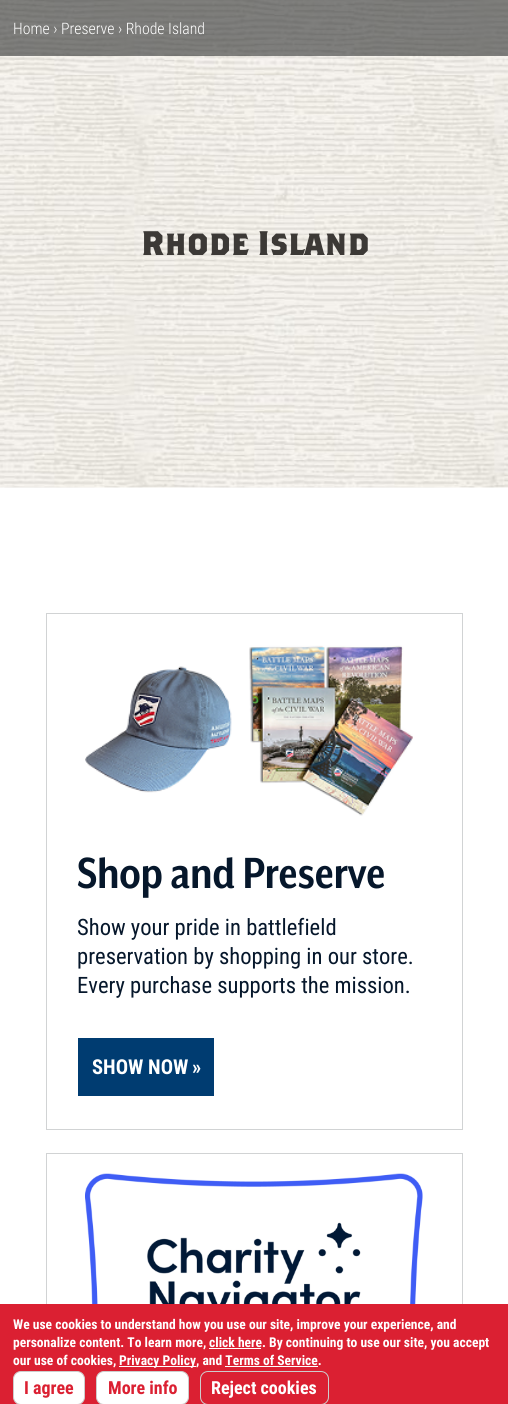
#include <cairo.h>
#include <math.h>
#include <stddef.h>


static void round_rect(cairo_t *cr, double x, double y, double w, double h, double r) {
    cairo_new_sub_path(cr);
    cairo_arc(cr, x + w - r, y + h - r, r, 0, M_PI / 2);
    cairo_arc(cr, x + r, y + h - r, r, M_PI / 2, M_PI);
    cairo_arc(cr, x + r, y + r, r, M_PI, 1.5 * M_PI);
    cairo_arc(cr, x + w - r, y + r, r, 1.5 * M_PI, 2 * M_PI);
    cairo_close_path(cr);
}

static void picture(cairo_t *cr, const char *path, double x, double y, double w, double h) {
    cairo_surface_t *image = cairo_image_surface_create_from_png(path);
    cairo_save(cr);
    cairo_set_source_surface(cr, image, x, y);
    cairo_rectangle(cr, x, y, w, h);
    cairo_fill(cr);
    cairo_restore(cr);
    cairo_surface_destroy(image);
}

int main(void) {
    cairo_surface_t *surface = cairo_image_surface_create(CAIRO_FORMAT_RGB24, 508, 1404);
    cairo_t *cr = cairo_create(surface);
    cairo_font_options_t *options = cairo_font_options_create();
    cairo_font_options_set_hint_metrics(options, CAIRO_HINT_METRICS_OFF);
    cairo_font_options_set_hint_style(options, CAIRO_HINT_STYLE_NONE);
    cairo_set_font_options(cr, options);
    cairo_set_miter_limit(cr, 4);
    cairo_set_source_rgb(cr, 1, 1, 1);
    cairo_paint(cr);
    picture(cr, "img1.png", 0, 0, 508, 488);
    cairo_set_source_rgba(cr, 0.188, 0.192, 0.192, 0.6);
    cairo_rectangle(cr, 0, 0, 508, 56);
    cairo_fill(cr);
    cairo_select_font_face(cr, "Roboto Condensed Light", CAIRO_FONT_SLANT_NORMAL, CAIRO_FONT_WEIGHT_NORMAL);
    cairo_set_font_size(cr, 15.75);
    cairo_set_source_rgb(cr, 1, 1, 1);
    cairo_move_to(cr, 13, 34);
    cairo_show_text(cr, "Home › Preserve › Rhode Island");
    cairo_select_font_face(cr, "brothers", CAIRO_FONT_SLANT_NORMAL, CAIRO_FONT_WEIGHT_NORMAL);
    cairo_set_font_size(cr, 34);
    cairo_set_source_rgb(cr, 0.235, 0.224, 0.212);
    cairo_move_to(cr, 141, 255);
    cairo_show_text(cr, "Rhode Island");
    cairo_rectangle(cr, 46.5, 613.5, 416, 516);
    cairo_set_source_rgb(cr, 0.82, 0.827, 0.831);
    cairo_set_line_width(cr, 1);
    cairo_stroke(cr);
    picture(cr, "img2.png", 85, 645, 328, 171);
    cairo_select_font_face(cr, "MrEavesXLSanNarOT", CAIRO_FONT_SLANT_NORMAL, CAIRO_FONT_WEIGHT_BOLD);
    cairo_set_font_size(cr, 50.25);
    cairo_set_source_rgb(cr, 0.024, 0.09, 0.169);
    cairo_move_to(cr, 77, 888);
    cairo_show_text(cr, "Shop and Preserve");
    cairo_select_font_face(cr, "Roboto Condensed", CAIRO_FONT_SLANT_NORMAL, CAIRO_FONT_WEIGHT_NORMAL);
    cairo_set_font_size(cr, 22.6);
    cairo_move_to(cr, 77, 935);
    cairo_show_text(cr, "Show your pride in battlefield");
    cairo_move_to(cr, 77, 964);
    cairo_show_text(cr, "preservation by shopping in our store.");
    cairo_move_to(cr, 77, 993);
    cairo_show_text(cr, "Every purchase supports the mission.");
    cairo_set_source_rgb(cr, 0, 0.235, 0.443);
    cairo_rectangle(cr, 78, 1038, 136, 58);
    cairo_fill(cr);
    cairo_select_font_face(cr, "Roboto Condensed", CAIRO_FONT_SLANT_NORMAL, CAIRO_FONT_WEIGHT_BOLD);
    cairo_set_font_size(cr, 20.5);
    cairo_set_source_rgb(cr, 1, 1, 1);
    cairo_move_to(cr, 92, 1074);
    cairo_show_text(cr, "SHOW NOW");
    cairo_move_to(cr, 192, 1074);
    cairo_show_text(cr, "»");
    cairo_rectangle(cr, 46.5, 1153.5, 416, 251);
    cairo_set_source_rgb(cr, 0.82, 0.827, 0.831);
    cairo_stroke(cr);
    picture(cr, "img3.png", 85, 1173, 338, 131);
    cairo_set_source_rgb(cr, 0.859, 0.125, 0.196);
    cairo_rectangle(cr, 0, 1304, 508, 100);
    cairo_fill(cr);
    cairo_set_font_size(cr, 13.55);
    cairo_set_source_rgb(cr, 1, 1, 1);
    cairo_move_to(cr, 13, 1329);
    cairo_show_text(cr, "We use cookies to understand how you use our site, improve your experience, and");
    cairo_move_to(cr, 13, 1347);
    cairo_show_text(cr, "personalize content. To learn more,");
    cairo_rectangle(cr, 209, 1348, 52, 1);
    cairo_fill(cr);
    cairo_move_to(cr, 209, 1347);
    cairo_show_text(cr, "click here. By continuing to use our site, you accept");
    cairo_move_to(cr, 13, 1365);
    cairo_show_text(cr, "our use of cookies,");
    cairo_rectangle(cr, 119, 1366, 77, 1);
    cairo_fill(cr);
    cairo_move_to(cr, 119, 1365);
    cairo_show_text(cr, "Privacy Policy, and Terms of Service.");
    cairo_rectangle(cr, 225, 1366, 93, 1);
    cairo_fill(cr);
    round_rect(cr, 13.5, 1371.5, 71, 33, 7.5);
    cairo_fill_preserve(cr);
    cairo_set_source_rgb(cr, 0.804, 0.8, 0.8);
    cairo_stroke(cr);
    cairo_set_font_size(cr, 18);
    cairo_set_source_rgb(cr, 0.859, 0.125, 0.196);
    cairo_move_to(cr, 24, 1394);
    cairo_show_text(cr, "I agree");
    cairo_set_source_rgb(cr, 1, 1, 1);
    round_rect(cr, 96.5, 1371.5, 92, 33, 7.5);
    cairo_fill_preserve(cr);
    cairo_set_source_rgb(cr, 0.804, 0.8, 0.8);
    cairo_stroke(cr);
    cairo_set_source_rgb(cr, 0.859, 0.125, 0.196);
    cairo_move_to(cr, 108, 1394);
    cairo_show_text(cr, "More info");
    round_rect(cr, 200.5, 1371.5, 128, 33, 7.5);
    cairo_set_source_rgb(cr, 0.804, 0.8, 0.8);
    cairo_stroke(cr);
    cairo_set_source_rgb(cr, 1, 1, 1);
    cairo_move_to(cr, 211, 1394);
    cairo_show_text(cr, "Reject cookies");
    cairo_surface_write_to_png(surface, "page.png");
    cairo_font_options_destroy(options);
    cairo_destroy(cr);
    cairo_surface_destroy(surface);
    return 0;
}
